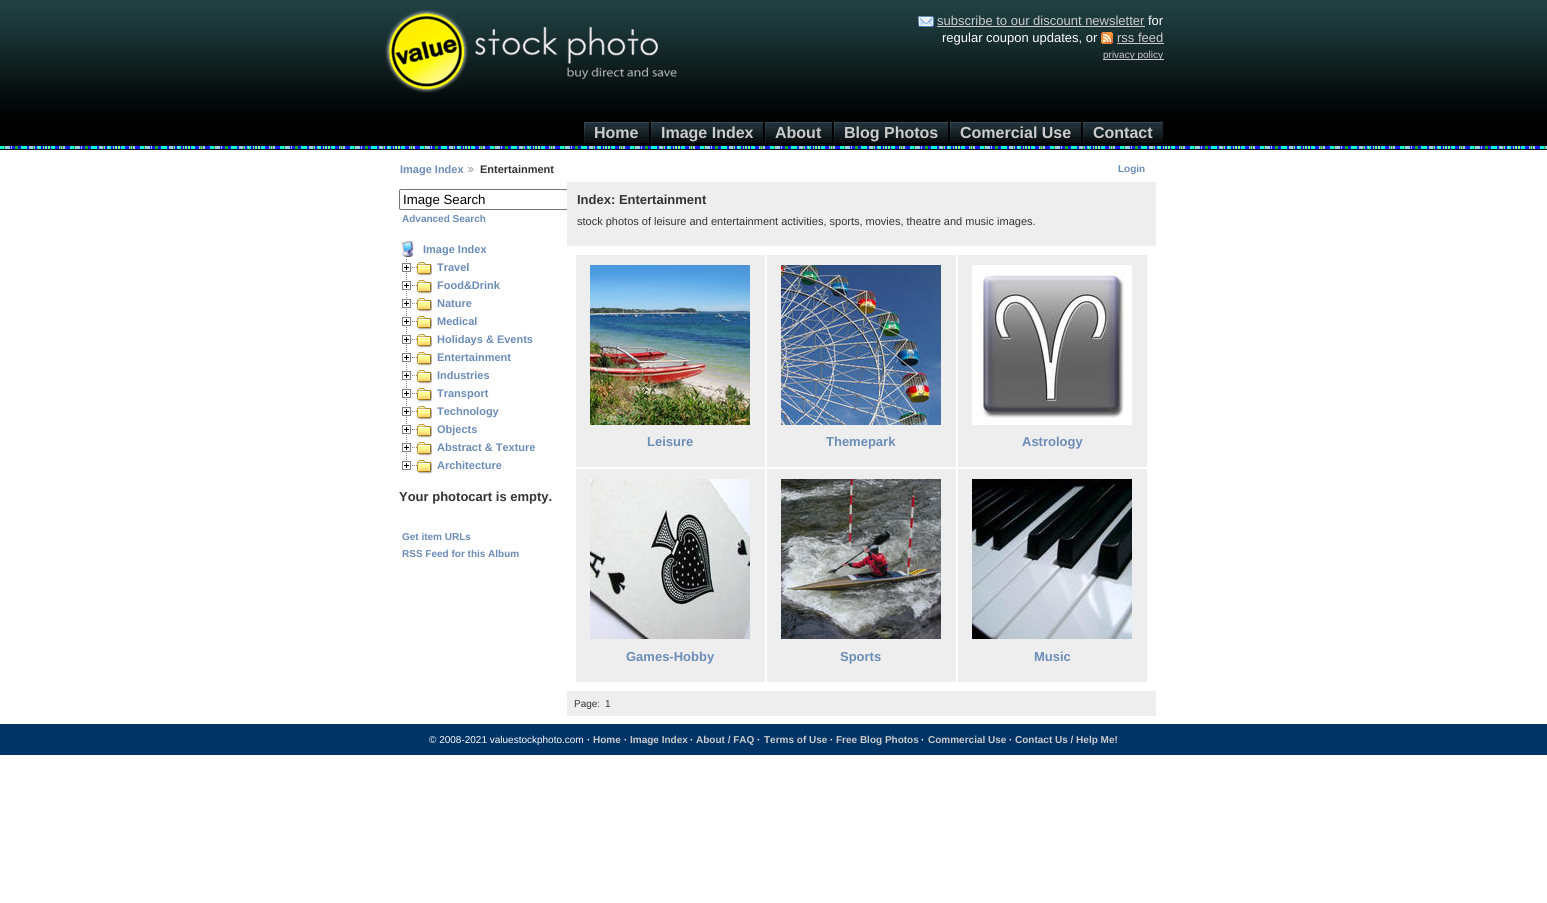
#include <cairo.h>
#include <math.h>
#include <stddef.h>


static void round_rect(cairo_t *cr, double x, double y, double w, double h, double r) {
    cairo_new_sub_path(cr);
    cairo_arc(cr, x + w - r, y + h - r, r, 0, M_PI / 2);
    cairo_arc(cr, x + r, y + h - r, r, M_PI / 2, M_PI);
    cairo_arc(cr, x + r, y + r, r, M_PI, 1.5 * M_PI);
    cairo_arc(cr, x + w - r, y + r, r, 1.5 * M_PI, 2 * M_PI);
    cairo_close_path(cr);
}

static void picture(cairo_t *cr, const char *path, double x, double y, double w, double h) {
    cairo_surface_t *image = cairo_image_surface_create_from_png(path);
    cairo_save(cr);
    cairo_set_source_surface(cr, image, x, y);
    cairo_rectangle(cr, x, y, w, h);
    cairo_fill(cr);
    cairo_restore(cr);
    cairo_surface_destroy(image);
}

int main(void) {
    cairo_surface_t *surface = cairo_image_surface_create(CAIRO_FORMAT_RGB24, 1547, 903);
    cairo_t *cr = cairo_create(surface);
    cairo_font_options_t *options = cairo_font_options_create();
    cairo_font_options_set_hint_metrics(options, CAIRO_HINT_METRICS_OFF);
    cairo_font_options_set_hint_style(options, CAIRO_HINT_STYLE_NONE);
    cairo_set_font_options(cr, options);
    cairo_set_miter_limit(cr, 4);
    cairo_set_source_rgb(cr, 1, 1, 1);
    cairo_paint(cr);
    picture(cr, "img1.png", 0, 0, 1547, 150);
    picture(cr, "img2.png", 385, 10, 292, 83);
    picture(cr, "img3.png", 918, 16, 16, 11);
    cairo_select_font_face(cr, "Liberation Sans", CAIRO_FONT_SLANT_NORMAL, CAIRO_FONT_WEIGHT_NORMAL);
    cairo_set_font_size(cr, 13);
    cairo_set_source_rgb(cr, 0.8, 0.8, 0.8);
    cairo_move_to(cr, 937, 25);
    cairo_show_text(cr, "subscribe to our discount newsletter");
    cairo_rectangle(cr, 937, 26, 208, 1);
    cairo_fill(cr);
    cairo_set_source_rgb(cr, 1, 1, 1);
    cairo_move_to(cr, 1148, 25);
    cairo_show_text(cr, "for");
    cairo_move_to(cr, 942, 42);
    cairo_show_text(cr, "regular coupon updates, or");
    picture(cr, "img4.png", 1101, 32, 12, 12);
    cairo_set_source_rgb(cr, 0.8, 0.8, 0.8);
    cairo_move_to(cr, 1117, 42);
    cairo_show_text(cr, "rss feed");
    cairo_rectangle(cr, 1117, 43, 47, 1);
    cairo_fill(cr);
    cairo_rectangle(cr, 1103, 59, 61, 1);
    cairo_fill(cr);
    cairo_set_font_size(cr, 10);
    cairo_move_to(cr, 1103, 58);
    cairo_show_text(cr, "privacy policy");
    picture(cr, "img5.png", 584, 122, 65, 21);
    picture(cr, "img6.png", 651, 122, 112, 21);
    picture(cr, "img7.png", 765, 122, 67, 21);
    picture(cr, "img8.png", 834, 122, 114, 21);
    picture(cr, "img9.png", 950, 122, 131, 21);
    picture(cr, "img10.png", 1083, 122, 80, 21);
    cairo_select_font_face(cr, "Liberation Sans", CAIRO_FONT_SLANT_NORMAL, CAIRO_FONT_WEIGHT_BOLD);
    cairo_set_font_size(cr, 16);
    cairo_move_to(cr, 594, 138);
    cairo_show_text(cr, "Home");
    cairo_move_to(cr, 661, 138);
    cairo_show_text(cr, "Image Index");
    cairo_move_to(cr, 775, 138);
    cairo_show_text(cr, "About");
    cairo_move_to(cr, 844, 138);
    cairo_show_text(cr, "Blog Photos");
    cairo_move_to(cr, 960, 138);
    cairo_show_text(cr, "Comercial Use");
    cairo_move_to(cr, 1093, 138);
    cairo_show_text(cr, "Contact");
    cairo_set_font_size(cr, 11);
    cairo_set_source_rgb(cr, 0.42, 0.549, 0.718);
    cairo_move_to(cr, 400, 173);
    cairo_show_text(cr, "Image Index");
    picture(cr, "img11.png", 468, 167, 6, 5);
    cairo_set_source_rgb(cr, 0.2, 0.2, 0.2);
    cairo_move_to(cr, 480, 173);
    cairo_show_text(cr, "Entertainment");
    cairo_set_font_size(cr, 10);
    cairo_set_source_rgb(cr, 0.42, 0.549, 0.718);
    cairo_move_to(cr, 1118, 172);
    cairo_show_text(cr, "Login");
    cairo_set_source_rgb(cr, 0.933, 0.933, 0.933);
    cairo_rectangle(cr, 567, 182, 589, 64);
    cairo_fill(cr);
    cairo_save(cr);
    cairo_rectangle(cr, 392, 182, 175, 390);
    cairo_clip(cr);
    round_rect(cr, 399.5, 189.5, 168, 20, 1.5);
    cairo_set_source_rgb(cr, 0.463, 0.463, 0.463);
    cairo_set_line_width(cr, 1);
    cairo_stroke(cr);
    cairo_restore(cr);
    cairo_select_font_face(cr, "Liberation Sans", CAIRO_FONT_SLANT_NORMAL, CAIRO_FONT_WEIGHT_NORMAL);
    cairo_set_font_size(cr, 13.25);
    cairo_set_source_rgb(cr, 0, 0, 0);
    cairo_move_to(cr, 403, 204);
    cairo_show_text(cr, "Image Search");
    cairo_select_font_face(cr, "Liberation Sans", CAIRO_FONT_SLANT_NORMAL, CAIRO_FONT_WEIGHT_BOLD);
    cairo_set_font_size(cr, 10);
    cairo_set_source_rgb(cr, 0.42, 0.549, 0.718);
    cairo_move_to(cr, 402, 222);
    cairo_show_text(cr, "Advanced Search");
    picture(cr, "img12.png", 402, 241, 12, 16);
    cairo_set_font_size(cr, 11);
    cairo_move_to(cr, 423, 253);
    cairo_show_text(cr, "Image Index");
    picture(cr, "img13.png", 402, 259, 15, 17);
    picture(cr, "img14.png", 417, 262, 15, 14);
    cairo_move_to(cr, 437, 271);
    cairo_show_text(cr, "Travel");
    picture(cr, "img13.png", 402, 277, 15, 17);
    picture(cr, "img14.png", 417, 280, 15, 14);
    cairo_move_to(cr, 437, 289);
    cairo_show_text(cr, "Food&Drink");
    picture(cr, "img13.png", 402, 295, 15, 17);
    picture(cr, "img14.png", 417, 298, 15, 14);
    cairo_move_to(cr, 437, 307);
    cairo_show_text(cr, "Nature");
    picture(cr, "img13.png", 402, 313, 15, 17);
    picture(cr, "img14.png", 417, 316, 15, 14);
    cairo_move_to(cr, 437, 325);
    cairo_show_text(cr, "Medical");
    picture(cr, "img13.png", 402, 331, 15, 17);
    picture(cr, "img14.png", 417, 334, 15, 14);
    cairo_move_to(cr, 437, 343);
    cairo_show_text(cr, "Holidays & Events");
    picture(cr, "img13.png", 402, 349, 15, 17);
    picture(cr, "img14.png", 417, 352, 15, 14);
    cairo_move_to(cr, 437, 361);
    cairo_show_text(cr, "Entertainment");
    picture(cr, "img13.png", 402, 367, 15, 17);
    picture(cr, "img14.png", 417, 370, 15, 14);
    cairo_move_to(cr, 437, 379);
    cairo_show_text(cr, "Industries");
    picture(cr, "img13.png", 402, 385, 15, 17);
    picture(cr, "img14.png", 417, 388, 15, 14);
    cairo_move_to(cr, 437, 397);
    cairo_show_text(cr, "Transport");
    picture(cr, "img13.png", 402, 403, 15, 17);
    picture(cr, "img14.png", 417, 406, 15, 14);
    cairo_move_to(cr, 437, 415);
    cairo_show_text(cr, "Technology");
    picture(cr, "img13.png", 402, 421, 15, 17);
    picture(cr, "img14.png", 417, 424, 15, 14);
    cairo_move_to(cr, 437, 433);
    cairo_show_text(cr, "Objects");
    picture(cr, "img13.png", 402, 439, 15, 17);
    picture(cr, "img14.png", 417, 442, 15, 14);
    cairo_move_to(cr, 437, 451);
    cairo_show_text(cr, "Abstract & Texture");
    picture(cr, "img15.png", 402, 457, 15, 13);
    picture(cr, "img14.png", 417, 460, 15, 14);
    cairo_move_to(cr, 437, 469);
    cairo_show_text(cr, "Architecture");
    cairo_set_font_size(cr, 13);
    cairo_set_source_rgb(cr, 0.2, 0.2, 0.2);
    cairo_move_to(cr, 399, 501);
    cairo_show_text(cr, "Your photocart is empty.");
    cairo_set_font_size(cr, 10);
    cairo_set_source_rgb(cr, 0.42, 0.549, 0.718);
    cairo_move_to(cr, 402, 540);
    cairo_show_text(cr, "Get item URLs");
    cairo_move_to(cr, 402, 557);
    cairo_show_text(cr, "RSS Feed for this Album");
    cairo_set_font_size(cr, 13);
    cairo_set_source_rgb(cr, 0.2, 0.2, 0.2);
    cairo_move_to(cr, 577, 204);
    cairo_show_text(cr, "Index: Entertainment");
    cairo_select_font_face(cr, "Liberation Sans", CAIRO_FONT_SLANT_NORMAL, CAIRO_FONT_WEIGHT_NORMAL);
    cairo_set_font_size(cr, 11);
    cairo_move_to(cr, 577, 225);
    cairo_show_text(cr, "stock photos of leisure and entertainment activities, sports, movies, theatre and music images.");
    cairo_set_source_rgb(cr, 0.933, 0.933, 0.933);
    cairo_rectangle(cr, 576, 255, 189, 212);
    cairo_fill(cr);
    picture(cr, "img16.png", 590, 265, 160, 160);
    cairo_select_font_face(cr, "Liberation Sans", CAIRO_FONT_SLANT_NORMAL, CAIRO_FONT_WEIGHT_BOLD);
    cairo_set_font_size(cr, 13);
    cairo_set_source_rgb(cr, 0.42, 0.549, 0.718);
    cairo_move_to(cr, 647, 446);
    cairo_show_text(cr, "Leisure");
    cairo_set_source_rgb(cr, 0.933, 0.933, 0.933);
    cairo_rectangle(cr, 767, 255, 189, 212);
    cairo_fill(cr);
    picture(cr, "img17.png", 781, 265, 160, 160);
    cairo_set_source_rgb(cr, 0.42, 0.549, 0.718);
    cairo_move_to(cr, 826, 446);
    cairo_show_text(cr, "Themepark");
    cairo_set_source_rgb(cr, 0.933, 0.933, 0.933);
    cairo_rectangle(cr, 958, 255, 189, 212);
    cairo_fill(cr);
    picture(cr, "img18.png", 972, 265, 160, 160);
    cairo_set_source_rgb(cr, 0.42, 0.549, 0.718);
    cairo_move_to(cr, 1022, 446);
    cairo_show_text(cr, "Astrology");
    cairo_set_source_rgb(cr, 0.933, 0.933, 0.933);
    cairo_rectangle(cr, 576, 469, 189, 213);
    cairo_fill(cr);
    picture(cr, "img19.png", 590, 479, 160, 160);
    cairo_set_source_rgb(cr, 0.42, 0.549, 0.718);
    cairo_move_to(cr, 626, 661);
    cairo_show_text(cr, "Games-Hobby");
    cairo_set_source_rgb(cr, 0.933, 0.933, 0.933);
    cairo_rectangle(cr, 767, 469, 189, 213);
    cairo_fill(cr);
    picture(cr, "img20.png", 781, 479, 160, 160);
    cairo_set_source_rgb(cr, 0.42, 0.549, 0.718);
    cairo_move_to(cr, 840, 661);
    cairo_show_text(cr, "Sports");
    cairo_set_source_rgb(cr, 0.933, 0.933, 0.933);
    cairo_rectangle(cr, 958, 469, 189, 213);
    cairo_fill(cr);
    picture(cr, "img21.png", 972, 479, 160, 160);
    cairo_set_source_rgb(cr, 0.42, 0.549, 0.718);
    cairo_move_to(cr, 1034, 661);
    cairo_show_text(cr, "Music");
    cairo_set_source_rgb(cr, 0.933, 0.933, 0.933);
    cairo_rectangle(cr, 567, 691, 589, 25);
    cairo_fill(cr);
    cairo_select_font_face(cr, "Liberation Sans", CAIRO_FONT_SLANT_NORMAL, CAIRO_FONT_WEIGHT_NORMAL);
    cairo_set_font_size(cr, 10);
    cairo_set_source_rgb(cr, 0.2, 0.2, 0.2);
    cairo_move_to(cr, 574, 707);
    cairo_show_text(cr, "Page:");
    cairo_move_to(cr, 605, 707);
    cairo_show_text(cr, "1");
    cairo_set_source_rgb(cr, 0, 0.2, 0.4);
    cairo_rectangle(cr, 0, 724, 1547, 31);
    cairo_fill(cr);
    cairo_set_source_rgb(cr, 1, 1, 1);
    cairo_move_to(cr, 429, 743);
    cairo_show_text(cr, "© 2008-2021 valuestockphoto.com");
    cairo_select_font_face(cr, "Liberation Sans", CAIRO_FONT_SLANT_NORMAL, CAIRO_FONT_WEIGHT_BOLD);
    cairo_move_to(cr, 587, 743);
    cairo_show_text(cr, "·");
    cairo_set_source_rgb(cr, 0.8, 0.8, 0.8);
    cairo_move_to(cr, 593, 743);
    cairo_show_text(cr, "Home");
    cairo_set_source_rgb(cr, 1, 1, 1);
    cairo_move_to(cr, 624, 743);
    cairo_show_text(cr, "·");
    cairo_set_source_rgb(cr, 0.8, 0.8, 0.8);
    cairo_move_to(cr, 630, 743);
    cairo_show_text(cr, "Image Index");
    cairo_set_source_rgb(cr, 1, 1, 1);
    cairo_move_to(cr, 690, 743);
    cairo_show_text(cr, "·");
    cairo_set_source_rgb(cr, 0.8, 0.8, 0.8);
    cairo_move_to(cr, 696, 743);
    cairo_show_text(cr, "About / FAQ");
    cairo_set_source_rgb(cr, 1, 1, 1);
    cairo_move_to(cr, 757, 743);
    cairo_show_text(cr, "·");
    cairo_set_source_rgb(cr, 0.8, 0.8, 0.8);
    cairo_move_to(cr, 764, 743);
    cairo_show_text(cr, "Terms of Use");
    cairo_set_source_rgb(cr, 1, 1, 1);
    cairo_move_to(cr, 830, 743);
    cairo_show_text(cr, "·");
    cairo_set_source_rgb(cr, 0.8, 0.8, 0.8);
    cairo_move_to(cr, 836, 743);
    cairo_show_text(cr, "Free Blog Photos");
    cairo_set_source_rgb(cr, 1, 1, 1);
    cairo_move_to(cr, 921, 743);
    cairo_show_text(cr, "·");
    cairo_set_source_rgb(cr, 0.8, 0.8, 0.8);
    cairo_move_to(cr, 928, 743);
    cairo_show_text(cr, "Commercial Use");
    cairo_set_source_rgb(cr, 1, 1, 1);
    cairo_move_to(cr, 1009, 743);
    cairo_show_text(cr, "·");
    cairo_set_source_rgb(cr, 0.8, 0.8, 0.8);
    cairo_move_to(cr, 1015, 743);
    cairo_show_text(cr, "Contact Us / Help Me!");
    cairo_surface_write_to_png(surface, "page.png");
    cairo_font_options_destroy(options);
    cairo_destroy(cr);
    cairo_surface_destroy(surface);
    return 0;
}
